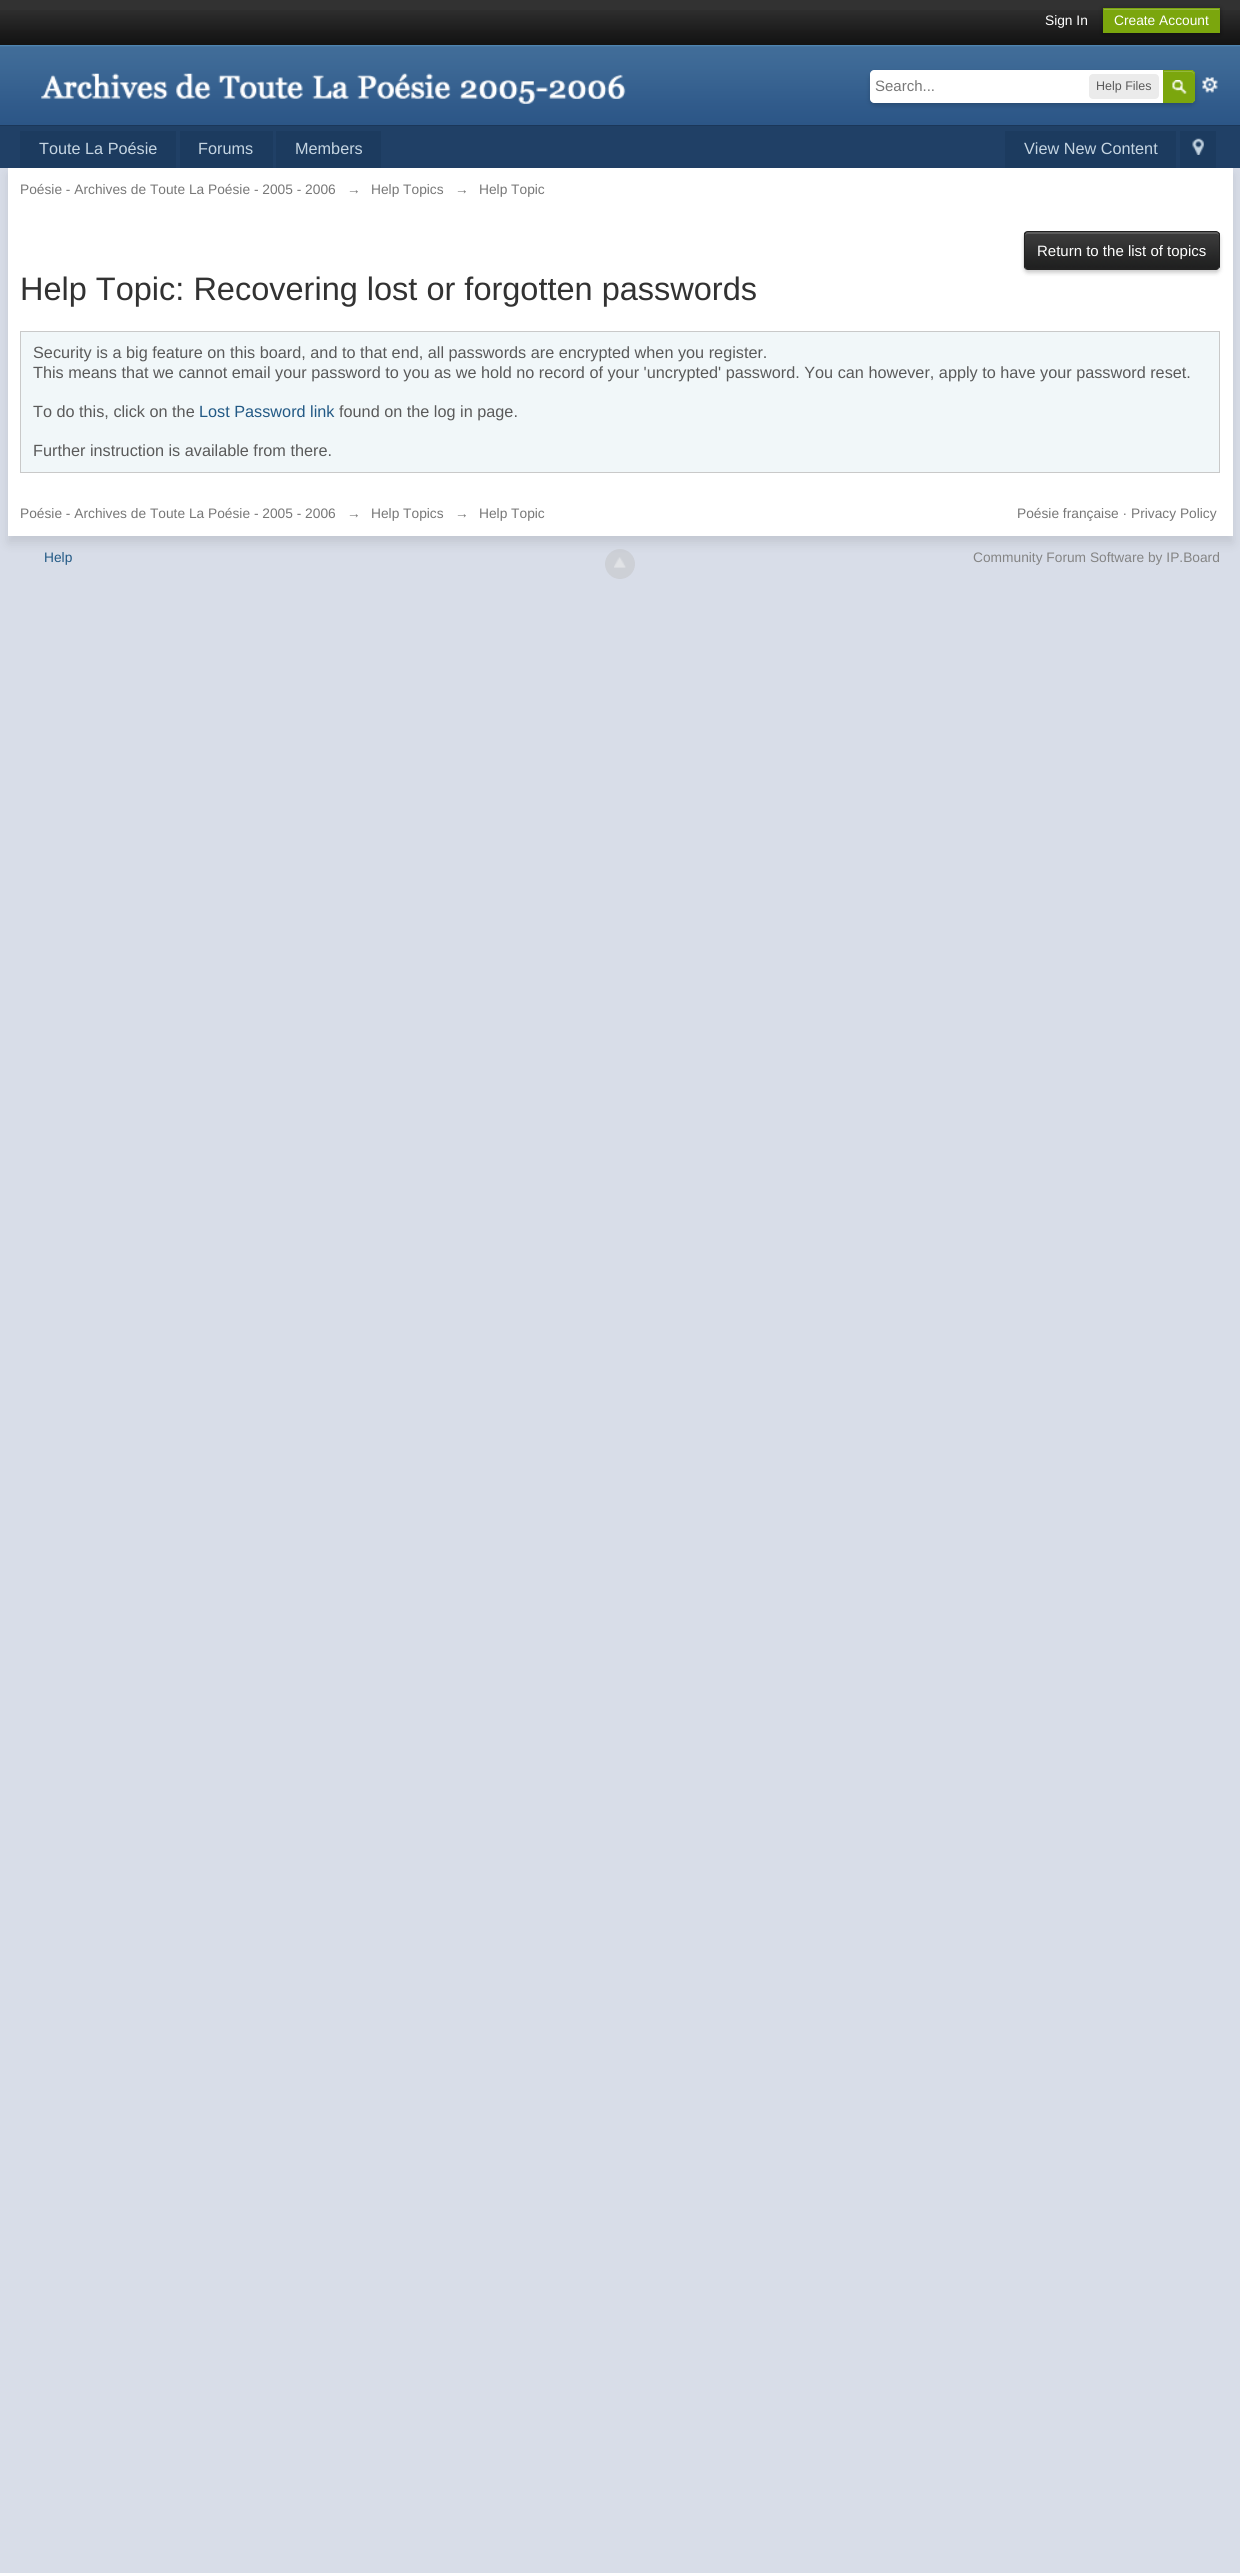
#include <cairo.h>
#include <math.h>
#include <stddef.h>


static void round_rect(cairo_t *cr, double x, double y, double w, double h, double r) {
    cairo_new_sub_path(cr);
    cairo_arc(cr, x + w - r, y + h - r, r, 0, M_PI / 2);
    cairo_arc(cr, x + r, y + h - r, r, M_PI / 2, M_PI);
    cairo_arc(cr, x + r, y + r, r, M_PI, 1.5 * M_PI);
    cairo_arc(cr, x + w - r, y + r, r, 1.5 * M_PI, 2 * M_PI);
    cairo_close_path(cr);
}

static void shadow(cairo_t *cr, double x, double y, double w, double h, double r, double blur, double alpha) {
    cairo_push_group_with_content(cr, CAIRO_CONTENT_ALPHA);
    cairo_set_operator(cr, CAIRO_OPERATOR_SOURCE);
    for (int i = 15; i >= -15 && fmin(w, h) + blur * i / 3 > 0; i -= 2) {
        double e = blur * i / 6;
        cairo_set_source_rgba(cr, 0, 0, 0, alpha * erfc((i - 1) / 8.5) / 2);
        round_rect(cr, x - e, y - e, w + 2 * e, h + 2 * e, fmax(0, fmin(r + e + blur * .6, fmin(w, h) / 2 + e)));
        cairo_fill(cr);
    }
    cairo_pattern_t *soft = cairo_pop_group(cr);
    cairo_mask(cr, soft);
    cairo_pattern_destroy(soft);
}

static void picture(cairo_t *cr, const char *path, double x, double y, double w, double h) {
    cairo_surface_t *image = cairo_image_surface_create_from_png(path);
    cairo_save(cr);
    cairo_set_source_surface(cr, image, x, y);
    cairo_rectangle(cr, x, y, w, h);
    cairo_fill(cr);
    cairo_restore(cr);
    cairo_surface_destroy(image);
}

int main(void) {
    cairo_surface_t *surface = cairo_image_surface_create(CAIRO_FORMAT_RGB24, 1240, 2573);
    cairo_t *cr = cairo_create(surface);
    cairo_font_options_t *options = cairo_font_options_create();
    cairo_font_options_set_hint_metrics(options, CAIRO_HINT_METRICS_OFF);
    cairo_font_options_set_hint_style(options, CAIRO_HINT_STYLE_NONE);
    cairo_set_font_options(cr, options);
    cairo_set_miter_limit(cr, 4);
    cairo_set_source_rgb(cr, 0.847, 0.867, 0.91);
    cairo_paint(cr);
    cairo_set_source_rgb(cr, 0.196, 0.196, 0.196);
    cairo_rectangle(cr, 0, 0, 1240, 10);
    cairo_fill(cr);
    picture(cr, "img1.png", 0, 10, 1240, 35);
    cairo_select_font_face(cr, "Liberation Sans", CAIRO_FONT_SLANT_NORMAL, CAIRO_FONT_WEIGHT_NORMAL);
    cairo_set_font_size(cr, 13.75);
    cairo_set_source_rgb(cr, 1, 1, 1);
    cairo_move_to(cr, 1045, 25);
    cairo_show_text(cr, "Sign In");
    cairo_set_source_rgb(cr, 0, 0, 0);
    shadow(cr, 1103, 9, 117, 25, 0, 2.5, 0.4);
    cairo_set_source_rgb(cr, 0.482, 0.651, 0.051);
    cairo_rectangle(cr, 1103, 8, 117, 25);
    cairo_fill(cr);
    cairo_set_source_rgb(cr, 0.584, 0.722, 0.239);
    cairo_rectangle(cr, 1104, 9, 115, 1);
    cairo_fill(cr);
    cairo_set_source_rgb(cr, 1, 1, 1);
    cairo_move_to(cr, 1114, 25);
    cairo_show_text(cr, "Create Account");
    picture(cr, "img2.png", 0, 45, 1240, 80);
    cairo_set_source_rgb(cr, 0.106, 0.216, 0.349);
    cairo_rectangle(cr, 0, 125, 1240, 1);
    cairo_fill(cr);
    picture(cr, "img3.png", 41, 73, 585, 31);
    picture(cr, "img5.png", 1202, 77, 16, 16);
    cairo_set_source_rgb(cr, 0, 0, 0);
    shadow(cr, 870, 73, 325, 32, 5, 2.5, 0.2);
    cairo_set_source_rgb(cr, 1, 1, 1);
    cairo_new_path(cr);
    cairo_move_to(cr, 874, 70);
    cairo_line_to(cr, 1190, 70);
    cairo_curve_to(cr, 1193, 70, 1195, 72, 1195, 75);
    cairo_line_to(cr, 1195, 98);
    cairo_curve_to(cr, 1195, 101, 1193, 103, 1190, 103);
    cairo_line_to(cr, 874, 103);
    cairo_curve_to(cr, 872, 103, 870, 101, 870, 99);
    cairo_line_to(cr, 870, 74);
    cairo_curve_to(cr, 870, 72, 872, 70, 874, 70);
    cairo_close_path(cr);
    cairo_fill(cr);
    cairo_set_font_size(cr, 15);
    cairo_set_source_rgb(cr, 0.467, 0.467, 0.467);
    cairo_move_to(cr, 875, 91);
    cairo_show_text(cr, "Search...");
    cairo_set_source_rgb(cr, 0.918, 0.918, 0.918);
    round_rect(cr, 1089, 74, 70, 25, 4);
    cairo_fill(cr);
    cairo_set_font_size(cr, 12.5);
    cairo_set_source_rgb(cr, 0.353, 0.353, 0.353);
    cairo_move_to(cr, 1096, 90);
    cairo_show_text(cr, "Help Files");
    cairo_set_source_rgb(cr, 0.482, 0.651, 0.051);
    cairo_new_path(cr);
    cairo_move_to(cr, 1163, 70);
    cairo_line_to(cr, 1191, 70);
    cairo_curve_to(cr, 1193, 70, 1195, 72, 1195, 74);
    cairo_line_to(cr, 1195, 99);
    cairo_curve_to(cr, 1195, 101, 1193, 103, 1191, 103);
    cairo_line_to(cr, 1163, 103);
    cairo_close_path(cr);
    cairo_fill(cr);
    picture(cr, "img4.png", 1172, 80, 15, 14);
    cairo_set_source_rgb(cr, 0.584, 0.722, 0.239);
    cairo_new_path(cr);
    cairo_move_to(cr, 1164, 72);
    cairo_line_to(cr, 1191, 72);
    cairo_curve_to(cr, 1193, 72, 1194, 74, 1194, 75);
    cairo_line_to(cr, 1194, 73.5);
    cairo_curve_to(cr, 1194, 72, 1193, 71, 1191.5, 71);
    cairo_line_to(cr, 1164, 71);
    cairo_close_path(cr);
    cairo_fill(cr);
    cairo_new_path(cr);
    cairo_move_to(cr, 1163.5, 70.5);
    cairo_line_to(cr, 1191, 70.5);
    cairo_curve_to(cr, 1193, 70.5, 1194.5, 72, 1194.5, 74);
    cairo_line_to(cr, 1194.5, 99);
    cairo_curve_to(cr, 1194.5, 101, 1193, 102.5, 1191, 102.5);
    cairo_line_to(cr, 1163.5, 102.5);
    cairo_close_path(cr);
    cairo_set_source_rgb(cr, 0.482, 0.651, 0.051);
    cairo_set_line_width(cr, 1);
    cairo_stroke(cr);
    cairo_set_source_rgb(cr, 0.125, 0.251, 0.4);
    cairo_rectangle(cr, 0, 126, 1240, 42);
    cairo_fill(cr);
    cairo_set_source_rgb(cr, 0, 0, 0);
    shadow(cr, 8, 174, 1225, 369, 0, 5.5, 0.1);
    cairo_set_source_rgb(cr, 0.11, 0.231, 0.373);
    cairo_rectangle(cr, 20, 131, 156, 37);
    cairo_fill(cr);
    cairo_set_font_size(cr, 16.25);
    cairo_set_source_rgb(cr, 0.773, 0.835, 0.886);
    cairo_move_to(cr, 39, 154);
    cairo_show_text(cr, "Toute La Poésie");
    cairo_set_source_rgb(cr, 0.11, 0.231, 0.373);
    cairo_rectangle(cr, 180, 131, 93, 37);
    cairo_fill(cr);
    cairo_set_source_rgb(cr, 0.773, 0.835, 0.886);
    cairo_move_to(cr, 198, 154);
    cairo_show_text(cr, "Forums");
    cairo_set_source_rgb(cr, 0.11, 0.231, 0.373);
    cairo_rectangle(cr, 276, 131, 105, 37);
    cairo_fill(cr);
    cairo_set_source_rgb(cr, 0.773, 0.835, 0.886);
    cairo_move_to(cr, 295, 154);
    cairo_show_text(cr, "Members");
    cairo_set_source_rgb(cr, 0.11, 0.231, 0.373);
    cairo_rectangle(cr, 1005, 131, 171, 37);
    cairo_fill(cr);
    cairo_set_source_rgb(cr, 0.773, 0.835, 0.886);
    cairo_move_to(cr, 1024, 154);
    cairo_show_text(cr, "View New Content");
    cairo_set_source_rgb(cr, 0.11, 0.231, 0.373);
    cairo_rectangle(cr, 1180, 131, 36, 37);
    cairo_fill(cr);
    picture(cr, "img6.png", 1192, 138, 12, 17);
    cairo_set_source_rgb(cr, 1, 1, 1);
    cairo_rectangle(cr, 8, 168, 1225, 368);
    cairo_fill(cr);
    cairo_set_font_size(cr, 13.75);
    cairo_set_source_rgb(cr, 0.467, 0.467, 0.467);
    cairo_move_to(cr, 20, 194);
    cairo_show_text(cr, "Poésie - Archives de Toute La Poésie - 2005 - 2006");
    cairo_move_to(cr, 347, 194);
    cairo_show_text(cr, "→");
    cairo_move_to(cr, 371, 194);
    cairo_show_text(cr, "Help Topics");
    cairo_move_to(cr, 455, 194);
    cairo_show_text(cr, "→");
    cairo_move_to(cr, 479, 194);
    cairo_show_text(cr, "Help Topic");
    cairo_set_source_rgb(cr, 0, 0, 0);
    shadow(cr, 1024, 234, 196, 39, 4, 2, 0.2);
    cairo_set_source_rgb(cr, 0.129, 0.129, 0.129);
    cairo_new_path(cr);
    cairo_move_to(cr, 1028, 232);
    cairo_line_to(cr, 1216, 232);
    cairo_curve_to(cr, 1218, 232, 1219, 234, 1219, 235);
    cairo_line_to(cr, 1219, 266);
    cairo_curve_to(cr, 1219, 268, 1218, 270, 1216, 270);
    cairo_line_to(cr, 1028, 270);
    cairo_curve_to(cr, 1026, 270, 1025, 268, 1025, 266);
    cairo_line_to(cr, 1025, 235);
    cairo_curve_to(cr, 1025, 234, 1026, 232, 1028, 232);
    cairo_close_path(cr);
    cairo_fill(cr);
    picture(cr, "img7.png", 1023, 232, 197, 36);
    cairo_set_source_rgb(cr, 0.361, 0.361, 0.361);
    cairo_new_path(cr);
    cairo_move_to(cr, 1028, 234);
    cairo_line_to(cr, 1217, 234);
    cairo_line_to(cr, 1219, 235);
    cairo_curve_to(cr, 1219, 234, 1218, 232, 1216, 232);
    cairo_line_to(cr, 1028, 232);
    cairo_curve_to(cr, 1026, 232, 1025, 234, 1025, 235);
    cairo_line_to(cr, 1025, 236);
    cairo_curve_to(cr, 1025, 235, 1026, 234, 1028, 234);
    cairo_close_path(cr);
    cairo_fill(cr);
    cairo_set_source_rgb(cr, 0.129, 0.129, 0.129);
    cairo_set_fill_rule(cr, CAIRO_FILL_RULE_EVEN_ODD);
    cairo_new_path(cr);
    cairo_move_to(cr, 1028, 231);
    cairo_line_to(cr, 1216, 231);
    cairo_curve_to(cr, 1218, 231, 1220, 233, 1220, 235);
    cairo_line_to(cr, 1220, 266);
    cairo_curve_to(cr, 1220, 268, 1218, 270, 1216, 270);
    cairo_line_to(cr, 1028, 270);
    cairo_curve_to(cr, 1025, 270, 1024, 268, 1024, 266);
    cairo_line_to(cr, 1024, 235);
    cairo_curve_to(cr, 1024, 233, 1025, 231, 1028, 231);
    cairo_close_path(cr);
    cairo_move_to(cr, 1028, 232);
    cairo_line_to(cr, 1216, 232);
    cairo_curve_to(cr, 1218, 232, 1219, 234, 1219, 235);
    cairo_line_to(cr, 1219, 266);
    cairo_curve_to(cr, 1219, 268, 1218, 270, 1216, 270);
    cairo_line_to(cr, 1028, 270);
    cairo_curve_to(cr, 1026, 270, 1025, 268, 1025, 266);
    cairo_line_to(cr, 1025, 235);
    cairo_curve_to(cr, 1025, 234, 1026, 232, 1028, 232);
    cairo_close_path(cr);
    cairo_fill(cr);
    cairo_set_font_size(cr, 15);
    cairo_set_source_rgb(cr, 1, 1, 1);
    cairo_move_to(cr, 1037, 256);
    cairo_show_text(cr, "Return to the list of topics");
    cairo_set_font_size(cr, 32.5);
    cairo_set_source_rgb(cr, 0.196, 0.196, 0.196);
    cairo_move_to(cr, 20, 300);
    cairo_show_text(cr, "Help Topic: Recovering lost or forgotten passwords");
    cairo_set_source_rgb(cr, 0.945, 0.965, 0.976);
    cairo_rectangle(cr, 20.5, 331.5, 1199, 141);
    cairo_fill_preserve(cr);
    cairo_set_source_rgb(cr, 0.788, 0.788, 0.788);
    cairo_stroke(cr);
    cairo_set_font_size(cr, 16.25);
    cairo_set_source_rgb(cr, 0.353, 0.353, 0.353);
    cairo_move_to(cr, 33, 358);
    cairo_show_text(cr, "Security is a big feature on this board, and to that end, all passwords are encrypted when you register.");
    cairo_move_to(cr, 33, 378);
    cairo_show_text(cr, "This means that we cannot email your password to you as we hold no record of your 'uncrypted' password. You can however, apply to have your password reset.");
    cairo_move_to(cr, 33, 417);
    cairo_show_text(cr, "To do this, click on the");
    cairo_set_source_rgb(cr, 0.133, 0.349, 0.522);
    cairo_move_to(cr, 199, 417);
    cairo_show_text(cr, "Lost Password link");
    cairo_set_source_rgb(cr, 0.353, 0.353, 0.353);
    cairo_move_to(cr, 339, 417);
    cairo_show_text(cr, "found on the log in page.");
    cairo_move_to(cr, 33, 456);
    cairo_show_text(cr, "Further instruction is available from there.");
    cairo_set_font_size(cr, 13.75);
    cairo_set_source_rgb(cr, 0.467, 0.467, 0.467);
    cairo_move_to(cr, 20, 518);
    cairo_show_text(cr, "Poésie - Archives de Toute La Poésie - 2005 - 2006");
    cairo_move_to(cr, 347, 518);
    cairo_show_text(cr, "→");
    cairo_move_to(cr, 371, 518);
    cairo_show_text(cr, "Help Topics");
    cairo_move_to(cr, 455, 518);
    cairo_show_text(cr, "→");
    cairo_move_to(cr, 479, 518);
    cairo_show_text(cr, "Help Topic");
    cairo_move_to(cr, 1017, 518);
    cairo_show_text(cr, "Poésie française ·");
    cairo_move_to(cr, 1131, 518);
    cairo_show_text(cr, "Privacy Policy");
    cairo_set_source_rgb(cr, 0.133, 0.349, 0.522);
    cairo_move_to(cr, 44, 562);
    cairo_show_text(cr, "Help");
    cairo_set_source_rgba(cr, 0.741, 0.741, 0.741, 0.4);
    cairo_new_path(cr);
    cairo_arc(cr, 620, 564, 15, 0, 2 * M_PI);
    cairo_fill(cr);
    picture(cr, "img8.png", 614, 557, 12, 11);
    cairo_set_source_rgb(cr, 0.518, 0.518, 0.518);
    cairo_move_to(cr, 973, 562);
    cairo_show_text(cr, "Community Forum Software by IP.Board");
    cairo_surface_write_to_png(surface, "page.png");
    cairo_font_options_destroy(options);
    cairo_destroy(cr);
    cairo_surface_destroy(surface);
    return 0;
}
